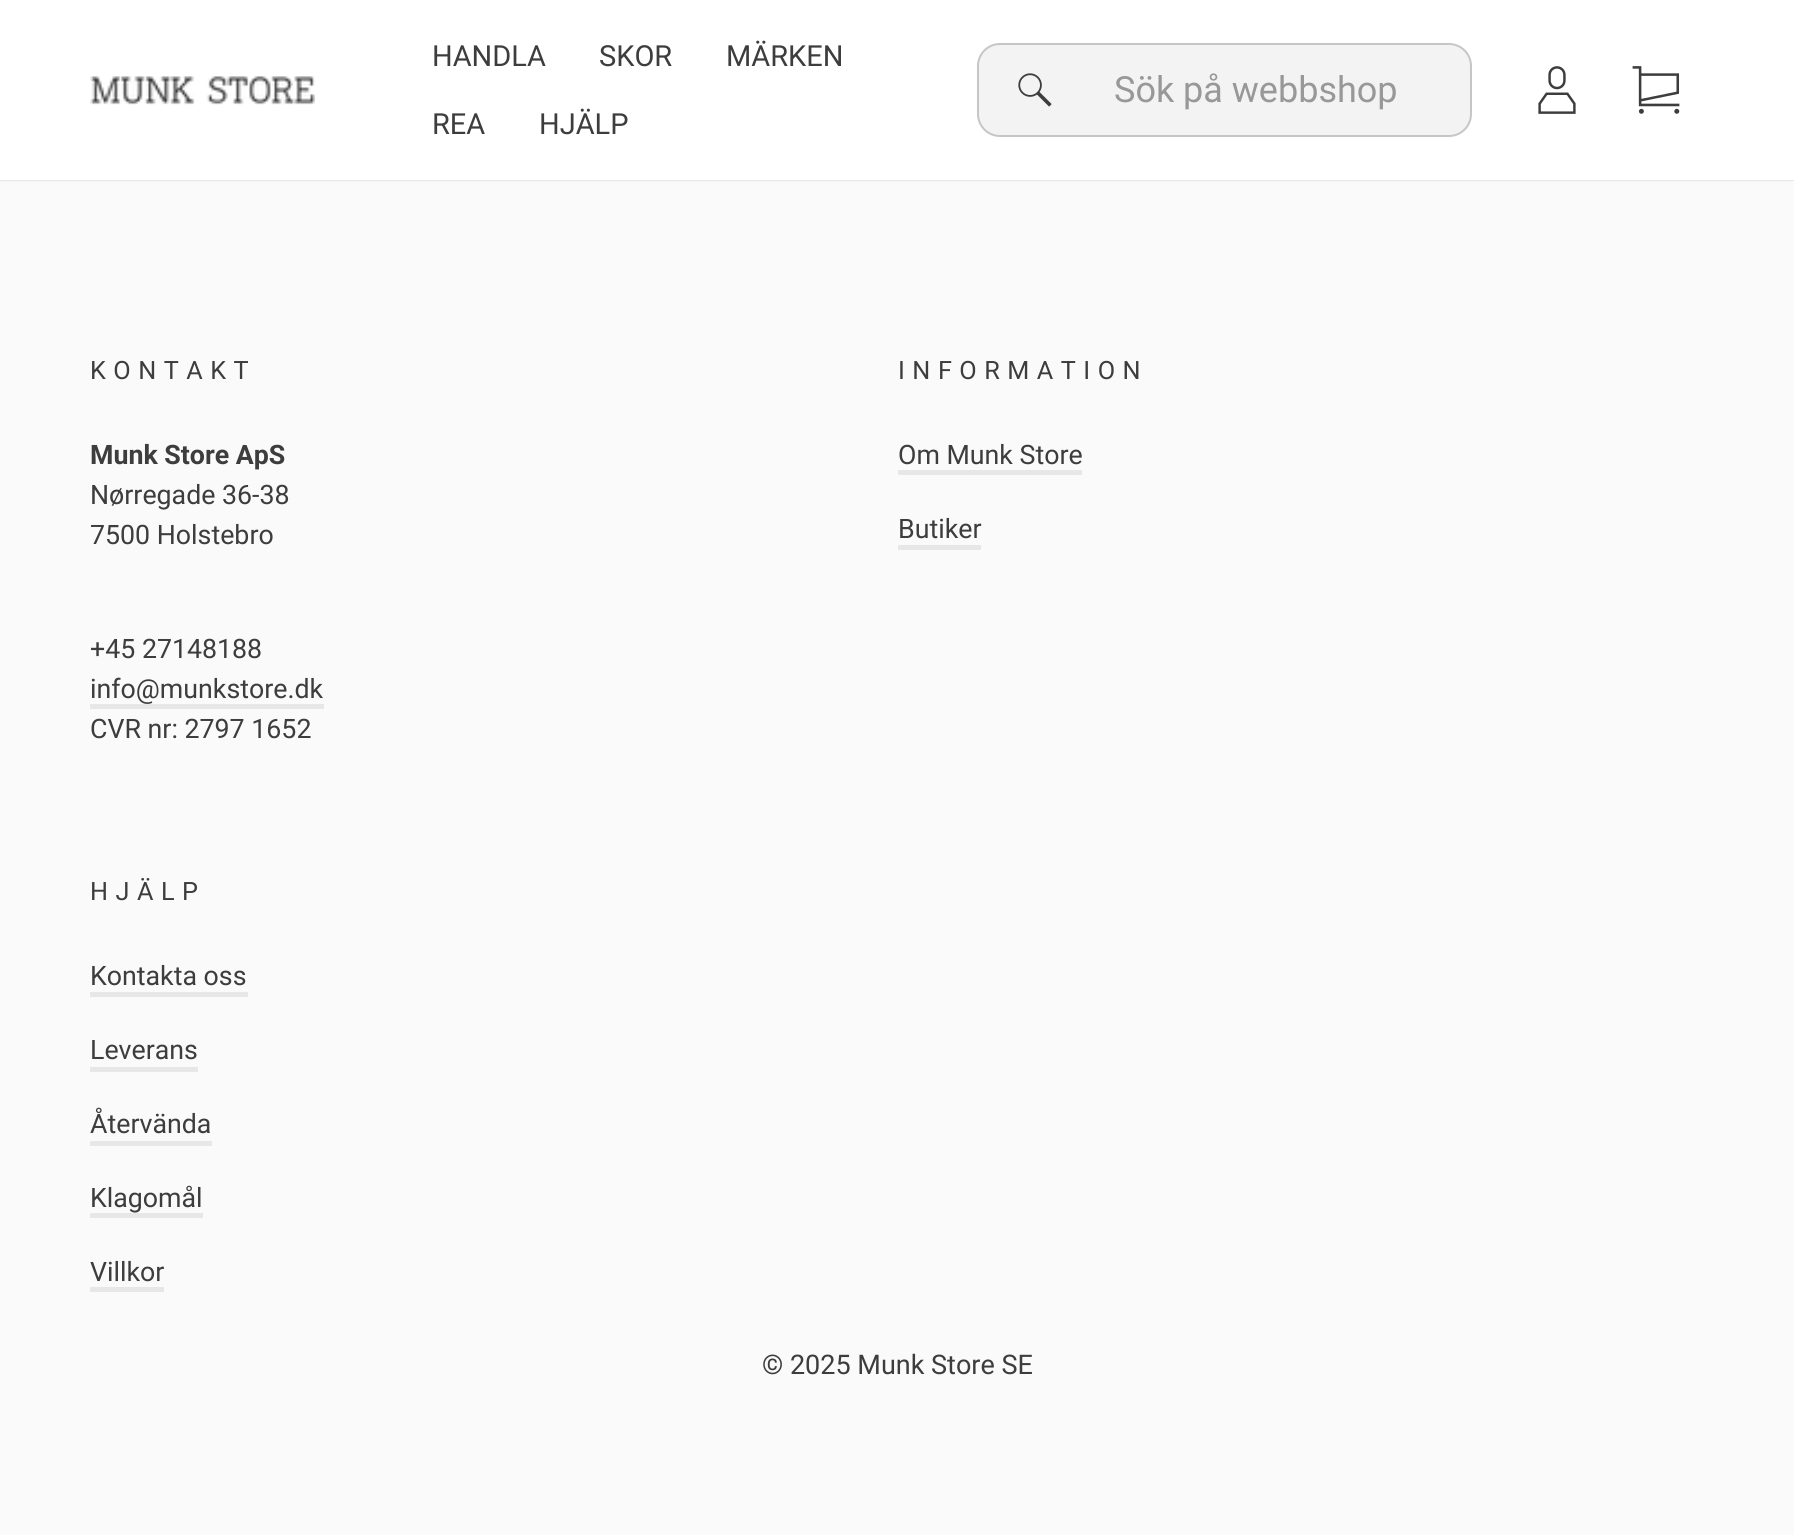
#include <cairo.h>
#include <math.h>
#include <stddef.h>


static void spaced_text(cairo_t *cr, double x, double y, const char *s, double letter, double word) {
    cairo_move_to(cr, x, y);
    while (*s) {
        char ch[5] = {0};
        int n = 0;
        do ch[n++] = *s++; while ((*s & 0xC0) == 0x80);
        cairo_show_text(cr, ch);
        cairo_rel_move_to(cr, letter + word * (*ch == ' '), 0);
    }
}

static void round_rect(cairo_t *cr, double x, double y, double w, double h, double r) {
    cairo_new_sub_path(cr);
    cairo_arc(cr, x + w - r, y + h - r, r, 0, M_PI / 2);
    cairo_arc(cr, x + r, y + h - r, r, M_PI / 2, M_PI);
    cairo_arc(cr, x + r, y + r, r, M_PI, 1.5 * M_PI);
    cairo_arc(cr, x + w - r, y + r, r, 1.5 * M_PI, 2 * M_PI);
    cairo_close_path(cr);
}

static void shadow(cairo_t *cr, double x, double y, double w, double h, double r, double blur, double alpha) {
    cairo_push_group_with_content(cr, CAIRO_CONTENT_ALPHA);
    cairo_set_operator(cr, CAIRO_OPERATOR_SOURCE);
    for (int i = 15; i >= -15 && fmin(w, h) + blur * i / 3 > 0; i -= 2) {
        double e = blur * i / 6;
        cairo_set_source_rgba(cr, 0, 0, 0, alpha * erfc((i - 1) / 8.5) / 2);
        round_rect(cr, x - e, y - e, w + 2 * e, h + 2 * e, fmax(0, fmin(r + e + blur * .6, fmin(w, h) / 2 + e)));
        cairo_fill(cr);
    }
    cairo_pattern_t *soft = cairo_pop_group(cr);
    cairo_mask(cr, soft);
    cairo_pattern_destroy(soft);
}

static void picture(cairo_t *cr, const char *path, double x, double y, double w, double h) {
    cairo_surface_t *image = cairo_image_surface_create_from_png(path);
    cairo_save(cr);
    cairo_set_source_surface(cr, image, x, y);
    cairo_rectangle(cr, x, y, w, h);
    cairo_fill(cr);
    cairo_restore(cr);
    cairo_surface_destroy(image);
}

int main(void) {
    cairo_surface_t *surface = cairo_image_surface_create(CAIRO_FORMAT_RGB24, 1794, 1535);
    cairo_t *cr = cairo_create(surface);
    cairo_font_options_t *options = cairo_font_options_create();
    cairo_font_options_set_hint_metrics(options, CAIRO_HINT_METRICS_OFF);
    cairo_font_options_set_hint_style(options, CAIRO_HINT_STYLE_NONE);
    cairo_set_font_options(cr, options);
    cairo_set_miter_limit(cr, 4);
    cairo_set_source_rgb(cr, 0.98, 0.98, 0.98);
    cairo_paint(cr);
    cairo_set_source_rgb(cr, 0, 0, 0);
    shadow(cr, 0, 0, 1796, 180, 0, 1, 0.2);
    cairo_set_source_rgb(cr, 1, 1, 1);
    cairo_rectangle(cr, 0, 0, 1794, 180);
    cairo_fill(cr);
    picture(cr, "img1.png", 90, 76, 225, 29);
    cairo_select_font_face(cr, "Roboto", CAIRO_FONT_SLANT_NORMAL, CAIRO_FONT_WEIGHT_NORMAL);
    cairo_set_font_size(cr, 29);
    cairo_set_source_rgb(cr, 0.239, 0.239, 0.239);
    cairo_move_to(cr, 432, 66);
    cairo_show_text(cr, "HANDLA");
    cairo_move_to(cr, 599, 66);
    cairo_show_text(cr, "SKOR");
    cairo_move_to(cr, 726, 66);
    cairo_show_text(cr, "MÄRKEN");
    cairo_move_to(cr, 432, 134);
    cairo_show_text(cr, "REA");
    cairo_move_to(cr, 539, 134);
    cairo_show_text(cr, "HJÄLP");
    cairo_set_source_rgb(cr, 0.953, 0.953, 0.953);
    round_rect(cr, 978, 44, 493, 92, 22);
    cairo_fill_preserve(cr);
    cairo_set_source_rgb(cr, 0.776, 0.776, 0.776);
    cairo_stroke(cr);
    picture(cr, "img2.png", 1018, 73, 34, 34);
    cairo_set_font_size(cr, 36);
    cairo_set_source_rgb(cr, 0.596, 0.596, 0.596);
    cairo_move_to(cr, 1114, 102);
    cairo_show_text(cr, "Sök på webbshop");
    picture(cr, "img3.png", 1538, 66, 38, 48);
    picture(cr, "img4.png", 1632, 66, 48, 48);
    cairo_set_font_size(cr, 25.25);
    cairo_set_source_rgb(cr, 0.239, 0.239, 0.239);
    spaced_text(cr, 90, 379, "KONTAKT", 7.5, 0);
    cairo_select_font_face(cr, "Roboto", CAIRO_FONT_SLANT_NORMAL, CAIRO_FONT_WEIGHT_BOLD);
    cairo_set_font_size(cr, 26.75);
    cairo_move_to(cr, 90, 464);
    cairo_show_text(cr, "Munk Store ApS");
    cairo_select_font_face(cr, "Roboto", CAIRO_FONT_SLANT_NORMAL, CAIRO_FONT_WEIGHT_NORMAL);
    cairo_move_to(cr, 90, 504);
    cairo_show_text(cr, "Nørregade 36-38");
    cairo_move_to(cr, 90, 544);
    cairo_show_text(cr, "7500 Holstebro");
    cairo_move_to(cr, 90, 658);
    cairo_show_text(cr, "+45 27148188");
    cairo_move_to(cr, 90, 698);
    cairo_show_text(cr, "info@munkstore.dk");
    cairo_set_source_rgb(cr, 0.906, 0.906, 0.906);
    cairo_rectangle(cr, 90, 704, 234, 5);
    cairo_fill(cr);
    cairo_set_source_rgb(cr, 0.239, 0.239, 0.239);
    cairo_move_to(cr, 90, 738);
    cairo_show_text(cr, "CVR nr: 2797 1652");
    cairo_set_font_size(cr, 25.25);
    spaced_text(cr, 898, 379, "INFORMATION", 7.5, 0);
    cairo_set_font_size(cr, 26.75);
    cairo_move_to(cr, 898, 464);
    cairo_show_text(cr, "Om Munk Store");
    cairo_set_source_rgb(cr, 0.906, 0.906, 0.906);
    cairo_rectangle(cr, 898, 470, 184, 5);
    cairo_fill(cr);
    cairo_set_source_rgb(cr, 0.239, 0.239, 0.239);
    cairo_move_to(cr, 898, 538);
    cairo_show_text(cr, "Butiker");
    cairo_set_source_rgb(cr, 0.906, 0.906, 0.906);
    cairo_rectangle(cr, 898, 545, 83, 5);
    cairo_fill(cr);
    cairo_set_font_size(cr, 25.25);
    cairo_set_source_rgb(cr, 0.239, 0.239, 0.239);
    spaced_text(cr, 90, 900, "HJÄLP", 7.5, 0);
    cairo_set_font_size(cr, 26.75);
    cairo_move_to(cr, 90, 985);
    cairo_show_text(cr, "Kontakta oss");
    cairo_set_source_rgb(cr, 0.906, 0.906, 0.906);
    cairo_rectangle(cr, 90, 992, 158, 5);
    cairo_fill(cr);
    cairo_set_source_rgb(cr, 0.239, 0.239, 0.239);
    cairo_move_to(cr, 90, 1059);
    cairo_show_text(cr, "Leverans");
    cairo_set_source_rgb(cr, 0.906, 0.906, 0.906);
    cairo_rectangle(cr, 90, 1067, 108, 5);
    cairo_fill(cr);
    cairo_set_source_rgb(cr, 0.239, 0.239, 0.239);
    cairo_move_to(cr, 90, 1133);
    cairo_show_text(cr, "Återvända");
    cairo_set_source_rgb(cr, 0.906, 0.906, 0.906);
    cairo_rectangle(cr, 90, 1141, 122, 5);
    cairo_fill(cr);
    cairo_set_source_rgb(cr, 0.239, 0.239, 0.239);
    cairo_move_to(cr, 90, 1207);
    cairo_show_text(cr, "Klagomål");
    cairo_set_source_rgb(cr, 0.906, 0.906, 0.906);
    cairo_rectangle(cr, 90, 1213, 113, 5);
    cairo_fill(cr);
    cairo_set_source_rgb(cr, 0.239, 0.239, 0.239);
    cairo_move_to(cr, 90, 1281);
    cairo_show_text(cr, "Villkor");
    cairo_set_source_rgb(cr, 0.906, 0.906, 0.906);
    cairo_rectangle(cr, 90, 1287, 74, 5);
    cairo_fill(cr);
    cairo_set_font_size(cr, 27);
    cairo_set_source_rgb(cr, 0.239, 0.239, 0.239);
    cairo_move_to(cr, 762, 1374);
    cairo_show_text(cr, "© 2025 Munk Store SE");
    cairo_surface_write_to_png(surface, "page.png");
    cairo_font_options_destroy(options);
    cairo_destroy(cr);
    cairo_surface_destroy(surface);
    return 0;
}
